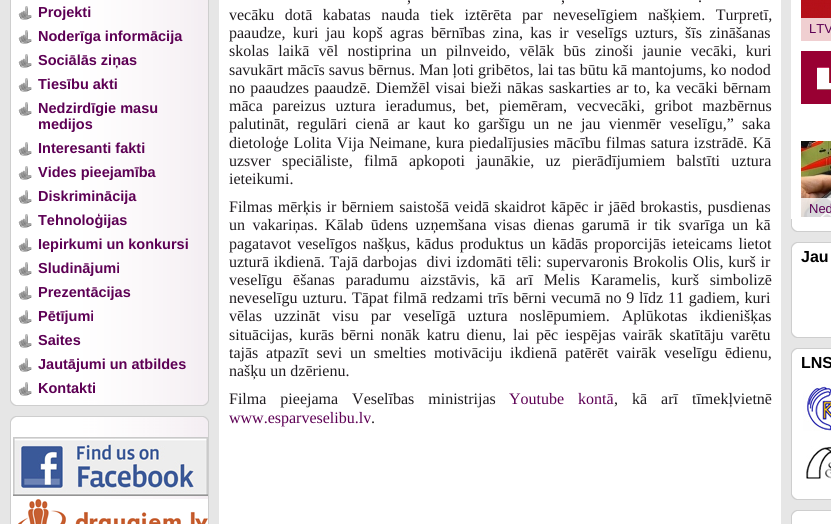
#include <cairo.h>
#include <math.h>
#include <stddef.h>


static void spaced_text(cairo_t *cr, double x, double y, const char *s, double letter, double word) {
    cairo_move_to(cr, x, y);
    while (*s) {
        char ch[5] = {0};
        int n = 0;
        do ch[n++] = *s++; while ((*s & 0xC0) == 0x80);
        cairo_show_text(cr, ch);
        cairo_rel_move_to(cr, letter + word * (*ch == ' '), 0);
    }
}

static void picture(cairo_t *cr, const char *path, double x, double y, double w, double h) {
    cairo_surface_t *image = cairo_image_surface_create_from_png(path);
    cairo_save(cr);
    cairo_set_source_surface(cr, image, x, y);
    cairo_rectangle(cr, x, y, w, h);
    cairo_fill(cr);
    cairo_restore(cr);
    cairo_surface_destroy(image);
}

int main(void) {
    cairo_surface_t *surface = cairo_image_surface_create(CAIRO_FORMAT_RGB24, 831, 524);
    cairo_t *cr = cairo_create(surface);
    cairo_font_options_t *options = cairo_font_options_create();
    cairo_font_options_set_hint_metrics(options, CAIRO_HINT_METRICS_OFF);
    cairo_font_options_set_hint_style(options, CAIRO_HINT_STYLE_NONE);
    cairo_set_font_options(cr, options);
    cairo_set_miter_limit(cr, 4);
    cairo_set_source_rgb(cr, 0.902, 0.902, 0.902);
    cairo_paint(cr);
    cairo_set_source_rgb(cr, 1, 1, 1);
    cairo_rectangle(cr, 219, 0, 562, 524);
    cairo_fill(cr);
    picture(cr, "img1.png", 10, 0, 199, 400);
    picture(cr, "img2.png", 10, 400, 199, 6);
    picture(cr, "img3.png", 18, 6, 14, 14);
    cairo_select_font_face(cr, "Liberation Sans", CAIRO_FONT_SLANT_NORMAL, CAIRO_FONT_WEIGHT_BOLD);
    cairo_set_font_size(cr, 14.5);
    cairo_set_source_rgb(cr, 0.365, 0, 0.329);
    cairo_move_to(cr, 38, 17);
    cairo_show_text(cr, "Projekti");
    picture(cr, "img3.png", 18, 30, 14, 14);
    cairo_move_to(cr, 38, 41);
    cairo_show_text(cr, "Noderīga informācija");
    picture(cr, "img3.png", 18, 54, 14, 14);
    cairo_move_to(cr, 38, 65);
    cairo_show_text(cr, "Sociālās ziņas");
    picture(cr, "img3.png", 18, 78, 14, 14);
    cairo_move_to(cr, 38, 89);
    cairo_show_text(cr, "Tiesību akti");
    picture(cr, "img3.png", 18, 102, 14, 14);
    cairo_move_to(cr, 38, 113);
    cairo_show_text(cr, "Nedzirdīgie masu");
    cairo_move_to(cr, 38, 129);
    cairo_show_text(cr, "medijos");
    picture(cr, "img3.png", 18, 142, 14, 14);
    cairo_move_to(cr, 38, 153);
    cairo_show_text(cr, "Interesanti fakti");
    picture(cr, "img3.png", 18, 166, 14, 14);
    cairo_move_to(cr, 38, 177);
    cairo_show_text(cr, "Vides pieejamība");
    picture(cr, "img3.png", 18, 190, 14, 14);
    cairo_move_to(cr, 38, 201);
    cairo_show_text(cr, "Diskriminācija");
    picture(cr, "img3.png", 18, 214, 14, 14);
    cairo_move_to(cr, 38, 225);
    cairo_show_text(cr, "Tehnoloģijas");
    picture(cr, "img3.png", 18, 238, 14, 14);
    cairo_move_to(cr, 38, 249);
    cairo_show_text(cr, "Iepirkumi un konkursi");
    picture(cr, "img3.png", 18, 262, 14, 14);
    cairo_move_to(cr, 38, 273);
    cairo_show_text(cr, "Sludinājumi");
    picture(cr, "img3.png", 18, 286, 14, 14);
    cairo_move_to(cr, 38, 297);
    cairo_show_text(cr, "Prezentācijas");
    picture(cr, "img3.png", 18, 310, 14, 14);
    cairo_move_to(cr, 38, 321);
    cairo_show_text(cr, "Pētījumi");
    picture(cr, "img3.png", 18, 334, 14, 14);
    cairo_move_to(cr, 38, 345);
    cairo_show_text(cr, "Saites");
    picture(cr, "img3.png", 18, 358, 14, 14);
    cairo_move_to(cr, 38, 369);
    cairo_show_text(cr, "Jautājumi un atbildes");
    picture(cr, "img3.png", 18, 382, 14, 14);
    cairo_move_to(cr, 38, 393);
    cairo_show_text(cr, "Kontakti");
    picture(cr, "img4.png", 10, 416, 199, 108);
    picture(cr, "img5.png", 13, 437, 195, 59);
    picture(cr, "img6.png", 18, 499, 190, 25);
    cairo_select_font_face(cr, "Liberation Serif", CAIRO_FONT_SLANT_NORMAL, CAIRO_FONT_WEIGHT_NORMAL);
    cairo_set_font_size(cr, 16);
    cairo_set_source_rgb(cr, 0.125, 0.11, 0.125);
    spaced_text(cr, 407, 2, ",", 0, 1);
    spaced_text(cr, 561, 2, ",", 0, 1);
    spaced_text(cr, 698, 2, ".", 0, 1);
    spaced_text(cr, 229, 20, "vecāku dotā kabatas nauda tiek iztērēta par neveselīgiem našķiem. Turpretī,", 0, 6.5);
    spaced_text(cr, 229, 38, "paaudze, kuri jau kopš agras bērnības zina, kas ir veselīgs uzturs, šīs zināšanas", 0, 3.25);
    spaced_text(cr, 229, 56, "skolas laikā vēl nostiprina un pilnveido, vēlāk būs zinoši jaunie vecāki, kuri", 0, 5.25);
    spaced_text(cr, 229, 75, "savukārt mācīs savus bērnus. Man ļoti gribētos, lai tas būtu kā mantojums, ko nodod", 0, 0.1);
    spaced_text(cr, 229, 93, "no paaudzes paaudzē. Diemžēl visai bieži nākas saskarties ar to, ka vecāki bērnam", 0, 1.25);
    spaced_text(cr, 229, 111, "māca pareizus uztura ieradumus, bet, piemēram, vecvecāki, gribot mazbērnus", 0, 5.75);
    spaced_text(cr, 229, 129, "palutināt, regulāri cienā ar kaut ko garšīgu un ne jau vienmēr veselīgu,” saka", 0, 4.25);
    spaced_text(cr, 229, 148, "dietoloģe Lolita Vija Neimane, kura piedalījusies mācību filmas satura izstrādē. Kā", 0, 0.9);
    spaced_text(cr, 229, 166, "uzsver speciāliste, filmā apkopoti jaunākie, uz pierādījumiem balstīti uztura", 0, 7.25);
    cairo_move_to(cr, 229, 184);
    cairo_show_text(cr, "ieteikumi.");
    spaced_text(cr, 229, 212, "Filmas mērķis ir bērniem saistošā veidā skaidrot kāpēc ir jāēd brokastis, pusdienas", 0, 1.25);
    spaced_text(cr, 229, 230, "un vakariņas. Kālab ūdens uzņemšana visas dienas garumā ir tik svarīga un kā", 0, 3.4);
    spaced_text(cr, 229, 249, "pagatavot veselīgos našķus, kādus produktus un kādās proporcijās ieteicams lietot", 0, 2);
    spaced_text(cr, 229, 267, "uzturā ikdienā. Tajā darbojas  divi izdomāti tēli: supervaronis Brokolis Olis, kurš ir", 0, 0.75);
    spaced_text(cr, 229, 285, "veselīgu ēšanas paradumu aizstāvis, kā arī Melis Karamelis, kurš simbolizē", 0, 6.75);
    spaced_text(cr, 229, 303, "neveselīgu uzturu. Tāpat filmā redzami trīs bērni vecumā no 9 līdz 11 gadiem, kuri", 0, 0.8);
    spaced_text(cr, 229, 321, "vēlas uzzināt visu par veselīgā uztura noslēpumiem. Aplūkotas ikdienišķas", 0, 8);
    spaced_text(cr, 229, 340, "situācijas, kurās bērni nonāk katru dienu, lai pēc iespējas vairāk skatītāju varētu", 0, 2.9);
    spaced_text(cr, 229, 358, "tajās atpazīt sevi un smelties motivāciju ikdienā patērēt vairāk veselīgu ēdienu,", 0, 3.75);
    cairo_move_to(cr, 229, 376);
    cairo_show_text(cr, "našķu un dzērienu.");
    spaced_text(cr, 229, 404, "Filma pieejama Veselības ministrijas", 0, 10);
    cairo_set_source_rgb(cr, 0.365, 0, 0.329);
    spaced_text(cr, 509, 404, "Youtube kontā", 0, 10);
    cairo_set_source_rgb(cr, 0.125, 0.11, 0.125);
    spaced_text(cr, 614, 404, ", kā arī tīmekļvietnē", 0, 10);
    cairo_set_source_rgb(cr, 0.365, 0, 0.329);
    cairo_move_to(cr, 229, 423);
    cairo_show_text(cr, "www.esparveselibu.lv");
    cairo_set_source_rgb(cr, 0.125, 0.11, 0.125);
    cairo_move_to(cr, 371, 423);
    cairo_show_text(cr, ".");
    cairo_set_source_rgb(cr, 1, 1, 1);
    cairo_rectangle(cr, 791, 0, 40, 219);
    cairo_fill(cr);
    picture(cr, "img7.png", 791, 219, 40, 13);
    picture(cr, "img8.png", 801, 0, 30, 41);
    cairo_set_source_rgba(cr, 1, 1, 1, 0.8);
    cairo_rectangle(cr, 801, 18, 30, 23);
    cairo_fill(cr);
    cairo_select_font_face(cr, "Liberation Sans", CAIRO_FONT_SLANT_NORMAL, CAIRO_FONT_WEIGHT_NORMAL);
    cairo_set_font_size(cr, 13);
    cairo_set_source_rgb(cr, 0.365, 0, 0.329);
    cairo_move_to(cr, 809, 33);
    cairo_show_text(cr, "LTV");
    picture(cr, "img9.png", 801, 51, 30, 53);
    picture(cr, "img10.png", 801, 141, 30, 76);
    cairo_set_source_rgba(cr, 1, 1, 1, 0.8);
    cairo_rectangle(cr, 801, 198, 30, 19);
    cairo_fill(cr);
    cairo_set_source_rgb(cr, 0.365, 0, 0.329);
    cairo_move_to(cr, 809, 213);
    cairo_show_text(cr, "Ned");
    picture(cr, "img11.png", 791, 242, 40, 90);
    picture(cr, "img12.png", 791, 332, 40, 6);
    cairo_select_font_face(cr, "Liberation Sans", CAIRO_FONT_SLANT_NORMAL, CAIRO_FONT_WEIGHT_BOLD);
    cairo_set_font_size(cr, 16);
    cairo_set_source_rgb(cr, 0, 0, 0);
    cairo_move_to(cr, 801, 262);
    cairo_show_text(cr, "Jau");
    picture(cr, "img13.png", 791, 348, 40, 146);
    picture(cr, "img12.png", 791, 494, 40, 6);
    cairo_move_to(cr, 801, 368);
    cairo_show_text(cr, "LNS");
    picture(cr, "img14.png", 803, 384, 28, 47);
    picture(cr, "img15.png", 806, 446, 25, 33);
    picture(cr, "img16.png", 791, 510, 40, 14);
    cairo_surface_write_to_png(surface, "page.png");
    cairo_font_options_destroy(options);
    cairo_destroy(cr);
    cairo_surface_destroy(surface);
    return 0;
}
